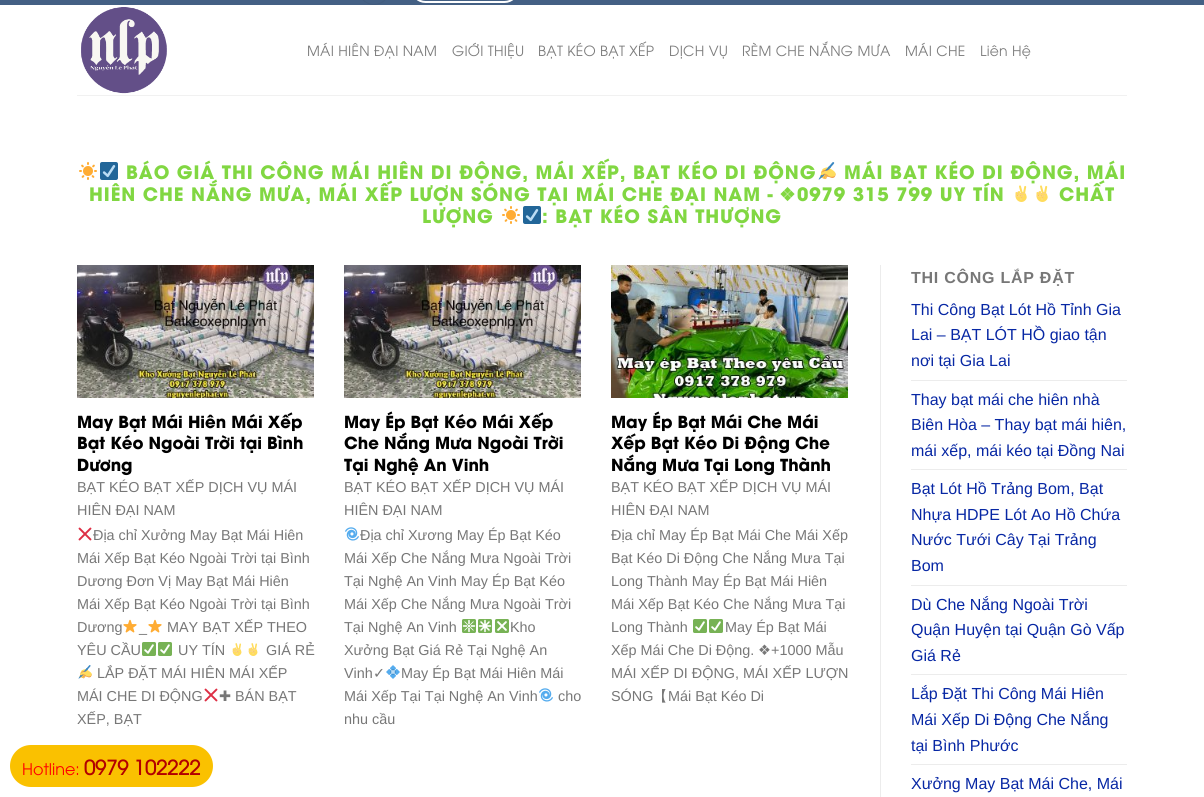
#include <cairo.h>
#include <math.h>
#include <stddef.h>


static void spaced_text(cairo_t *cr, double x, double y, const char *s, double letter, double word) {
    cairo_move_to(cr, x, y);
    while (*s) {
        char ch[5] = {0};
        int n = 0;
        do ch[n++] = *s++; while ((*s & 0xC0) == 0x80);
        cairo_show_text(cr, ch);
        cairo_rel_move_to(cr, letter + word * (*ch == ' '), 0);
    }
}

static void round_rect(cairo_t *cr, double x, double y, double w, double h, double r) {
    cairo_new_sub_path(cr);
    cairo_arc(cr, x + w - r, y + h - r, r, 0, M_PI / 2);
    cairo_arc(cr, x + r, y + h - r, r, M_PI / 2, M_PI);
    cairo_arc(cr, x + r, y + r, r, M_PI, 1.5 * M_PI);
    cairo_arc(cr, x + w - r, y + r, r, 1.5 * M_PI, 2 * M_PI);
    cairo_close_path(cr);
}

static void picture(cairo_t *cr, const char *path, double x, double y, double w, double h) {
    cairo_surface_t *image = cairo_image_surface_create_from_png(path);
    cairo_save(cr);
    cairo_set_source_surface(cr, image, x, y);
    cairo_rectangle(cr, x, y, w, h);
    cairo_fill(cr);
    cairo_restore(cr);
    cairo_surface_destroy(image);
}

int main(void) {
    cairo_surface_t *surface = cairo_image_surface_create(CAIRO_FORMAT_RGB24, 1204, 797);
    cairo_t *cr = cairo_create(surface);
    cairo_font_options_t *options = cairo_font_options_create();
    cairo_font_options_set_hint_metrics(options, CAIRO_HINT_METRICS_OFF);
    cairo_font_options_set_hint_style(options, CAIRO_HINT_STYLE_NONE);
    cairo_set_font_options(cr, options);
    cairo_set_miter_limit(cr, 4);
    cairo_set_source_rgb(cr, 1, 1, 1);
    cairo_paint(cr);
    cairo_set_source_rgb(cr, 0.267, 0.376, 0.518);
    cairo_rectangle(cr, 0, 0, 1204, 5);
    cairo_fill(cr);
    round_rect(cr, 358.5, -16.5, 31, 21, 15.5);
    cairo_set_source_rgb(cr, 0.255, 0.357, 0.49);
    cairo_set_line_width(cr, 1);
    cairo_stroke(cr);
    round_rect(cr, 412, -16, 106, 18, 13.5);
    cairo_set_source_rgb(cr, 1, 1, 1);
    cairo_set_line_width(cr, 2);
    cairo_stroke(cr);
    picture(cr, "img1.png", 81, 7, 86, 87);
    cairo_select_font_face(cr, "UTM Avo", CAIRO_FONT_SLANT_NORMAL, CAIRO_FONT_WEIGHT_NORMAL);
    cairo_set_font_size(cr, 14);
    cairo_set_source_rgb(cr, 0.49, 0.49, 0.49);
    spaced_text(cr, 307, 56, "MÁI HIÊN ĐẠI NAM", 0.25, 0);
    spaced_text(cr, 452, 56, "GIỚI THIỆU", 0.25, 0);
    spaced_text(cr, 538, 56, "BẠT KÉO BẠT XẾP", 0.25, 0);
    spaced_text(cr, 669, 56, "DỊCH VỤ", 0.25, 0);
    spaced_text(cr, 742, 56, "RÈM CHE NẮNG MƯA", 0.25, 0);
    spaced_text(cr, 905, 56, "MÁI CHE", 0.25, 0);
    spaced_text(cr, 980, 56, "Liên Hệ", 0.25, 0);
    cairo_set_source_rgb(cr, 0.945, 0.945, 0.945);
    cairo_rectangle(cr, 77, 95, 1050, 1);
    cairo_fill(cr);
    picture(cr, "img2.png", 79, 162, 18, 18);
    picture(cr, "img3.png", 100, 162, 18, 18);
    cairo_select_font_face(cr, "UTM Avo", CAIRO_FONT_SLANT_NORMAL, CAIRO_FONT_WEIGHT_BOLD);
    cairo_set_font_size(cr, 18.4);
    cairo_set_source_rgb(cr, 0.506, 0.843, 0.259);
    spaced_text(cr, 126, 179, "BÁO GIÁ THI CÔNG MÁI HIÊN DI ĐỘNG, MÁI XẾP, BẠT KÉO DI ĐỘNG", 0.92, 0);
    picture(cr, "img4.png", 818, 162, 18, 18);
    spaced_text(cr, 844, 179, "MÁI BẠT KÉO DI ĐỘNG, MÁI", 0.92, 0);
    spaced_text(cr, 89, 201, "HIÊN CHE NẮNG MƯA, MÁI XẾP LƯỢN SÓNG TẠI MÁI CHE ĐẠI NAM -", 0.92, 0);
    cairo_select_font_face(cr, "DejaVu Sans", CAIRO_FONT_SLANT_NORMAL, CAIRO_FONT_WEIGHT_BOLD);
    spaced_text(cr, 779, 201, "❖", 0.92, 0);
    cairo_select_font_face(cr, "UTM Avo", CAIRO_FONT_SLANT_NORMAL, CAIRO_FONT_WEIGHT_BOLD);
    spaced_text(cr, 797, 201, "0979 315 799 UY TÍN", 0.92, 0);
    picture(cr, "img5.png", 1015, 185, 12, 17);
    picture(cr, "img5.png", 1036, 185, 12, 17);
    spaced_text(cr, 1059, 201, "CHẤT", 0.92, 0);
    spaced_text(cr, 422, 223, "LƯỢNG", 0.92, 0);
    picture(cr, "img2.png", 502, 206, 18, 18);
    picture(cr, "img3.png", 523, 206, 18, 18);
    spaced_text(cr, 542, 223, ": BẠT KÉO SÂN THƯỢNG", 0.92, 0);
    picture(cr, "img6.png", 77, 265, 237, 133);
    cairo_set_font_size(cr, 16.5);
    cairo_set_source_rgb(cr, 0, 0, 0);
    cairo_move_to(cr, 77, 428);
    cairo_show_text(cr, "May Bạt Mái Hiên Mái Xếp");
    cairo_move_to(cr, 77, 449);
    cairo_show_text(cr, "Bạt Kéo Ngoài Trời tại Bình");
    cairo_move_to(cr, 77, 471);
    cairo_show_text(cr, "Dương");
    cairo_select_font_face(cr, "Liberation Sans", CAIRO_FONT_SLANT_NORMAL, CAIRO_FONT_WEIGHT_NORMAL);
    cairo_set_font_size(cr, 14.4);
    cairo_set_source_rgb(cr, 0.467, 0.467, 0.467);
    cairo_move_to(cr, 77, 492);
    cairo_show_text(cr, "BẠT KÉO BẠT XẾP DỊCH VỤ MÁI");
    cairo_move_to(cr, 77, 515);
    cairo_show_text(cr, "HIÊN ĐẠI NAM");
    picture(cr, "img7.png", 78, 527, 14, 14);
    cairo_move_to(cr, 93, 540);
    cairo_show_text(cr, "Địa chỉ Xưởng May Bạt Mái Hiên");
    cairo_move_to(cr, 77, 563);
    cairo_show_text(cr, "Mái Xếp Bạt Kéo Ngoài Trời tại Bình");
    cairo_move_to(cr, 77, 586);
    cairo_show_text(cr, "Dương Đơn Vị May Bạt Mái Hiên");
    cairo_move_to(cr, 77, 609);
    cairo_show_text(cr, "Mái Xếp Bạt Kéo Ngoài Trời tại Bình");
    cairo_move_to(cr, 77, 632);
    cairo_show_text(cr, "Dương");
    picture(cr, "img8.png", 123, 619, 14, 14);
    cairo_move_to(cr, 139, 632);
    cairo_show_text(cr, "_");
    picture(cr, "img8.png", 148, 619, 14, 14);
    cairo_move_to(cr, 167, 632);
    cairo_show_text(cr, "MAY BẠT XẾP THEO");
    cairo_move_to(cr, 77, 655);
    cairo_show_text(cr, "YÊU CẦU");
    picture(cr, "img9.png", 142, 642, 14, 14);
    picture(cr, "img9.png", 158, 642, 14, 14);
    cairo_move_to(cr, 178, 655);
    cairo_show_text(cr, "UY TÍN");
    picture(cr, "img10.png", 232, 643, 10, 13);
    picture(cr, "img10.png", 248, 643, 10, 13);
    cairo_move_to(cr, 266, 655);
    cairo_show_text(cr, "GIÁ RẺ");
    picture(cr, "img11.png", 78, 665, 14, 14);
    cairo_move_to(cr, 97, 678);
    cairo_show_text(cr, "LẮP ĐẶT MÁI HIÊN MÁI XẾP");
    cairo_move_to(cr, 77, 701);
    cairo_show_text(cr, "MÁI CHE DI ĐỘNG");
    picture(cr, "img7.png", 204, 688, 14, 14);
    cairo_select_font_face(cr, "DejaVu Sans", CAIRO_FONT_SLANT_NORMAL, CAIRO_FONT_WEIGHT_NORMAL);
    cairo_move_to(cr, 219, 701);
    cairo_show_text(cr, "✚");
    cairo_select_font_face(cr, "Liberation Sans", CAIRO_FONT_SLANT_NORMAL, CAIRO_FONT_WEIGHT_NORMAL);
    cairo_move_to(cr, 235, 701);
    cairo_show_text(cr, "BÁN BẠT");
    cairo_move_to(cr, 77, 724);
    cairo_show_text(cr, "XẾP, BẠT");
    picture(cr, "img6.png", 344, 265, 237, 133);
    cairo_select_font_face(cr, "UTM Avo", CAIRO_FONT_SLANT_NORMAL, CAIRO_FONT_WEIGHT_BOLD);
    cairo_set_font_size(cr, 16.5);
    cairo_set_source_rgb(cr, 0, 0, 0);
    cairo_move_to(cr, 344, 428);
    cairo_show_text(cr, "May Ép Bạt Kéo Mái Xếp");
    cairo_move_to(cr, 344, 449);
    cairo_show_text(cr, "Che Nắng Mưa Ngoài Trời");
    cairo_move_to(cr, 344, 471);
    cairo_show_text(cr, "Tại Nghệ An Vinh");
    cairo_select_font_face(cr, "Liberation Sans", CAIRO_FONT_SLANT_NORMAL, CAIRO_FONT_WEIGHT_NORMAL);
    cairo_set_font_size(cr, 14.4);
    cairo_set_source_rgb(cr, 0.467, 0.467, 0.467);
    cairo_move_to(cr, 344, 492);
    cairo_show_text(cr, "BẠT KÉO BẠT XẾP DỊCH VỤ MÁI");
    cairo_move_to(cr, 344, 515);
    cairo_show_text(cr, "HIÊN ĐẠI NAM");
    picture(cr, "img12.png", 345, 527, 14, 14);
    cairo_move_to(cr, 360, 540);
    cairo_show_text(cr, "Địa chỉ Xương May Ép Bạt Kéo");
    cairo_move_to(cr, 344, 563);
    cairo_show_text(cr, "Mái Xếp Che Nắng Mưa Ngoài Trời");
    cairo_move_to(cr, 344, 586);
    cairo_show_text(cr, "Tại Nghệ An Vinh May Ép Bạt Kéo");
    cairo_move_to(cr, 344, 609);
    cairo_show_text(cr, "Mái Xếp Che Nắng Mưa Ngoài Trời");
    cairo_move_to(cr, 344, 632);
    cairo_show_text(cr, "Tại Nghệ An Vinh");
    picture(cr, "img13.png", 462, 619, 14, 14);
    picture(cr, "img14.png", 478, 619, 14, 14);
    picture(cr, "img15.png", 495, 619, 14, 14);
    cairo_move_to(cr, 510, 632);
    cairo_show_text(cr, "Kho");
    cairo_move_to(cr, 344, 655);
    cairo_show_text(cr, "Xưởng Bạt Giá Rẻ Tại Nghệ An");
    cairo_move_to(cr, 344, 678);
    cairo_show_text(cr, "Vinh");
    cairo_select_font_face(cr, "DejaVu Sans", CAIRO_FONT_SLANT_NORMAL, CAIRO_FONT_WEIGHT_NORMAL);
    cairo_move_to(cr, 373, 678);
    cairo_show_text(cr, "✓");
    picture(cr, "img16.png", 386, 665, 14, 14);
    cairo_select_font_face(cr, "Liberation Sans", CAIRO_FONT_SLANT_NORMAL, CAIRO_FONT_WEIGHT_NORMAL);
    cairo_move_to(cr, 401, 678);
    cairo_show_text(cr, "May Ép Bạt Mái Hiên Mái");
    cairo_move_to(cr, 344, 701);
    cairo_show_text(cr, "Mái Xếp Tại Tại Nghệ An Vinh");
    picture(cr, "img12.png", 539, 688, 14, 14);
    cairo_move_to(cr, 558, 701);
    cairo_show_text(cr, "cho");
    cairo_move_to(cr, 344, 724);
    cairo_show_text(cr, "nhu cầu");
    picture(cr, "img17.png", 611, 265, 237, 133);
    cairo_select_font_face(cr, "UTM Avo", CAIRO_FONT_SLANT_NORMAL, CAIRO_FONT_WEIGHT_BOLD);
    cairo_set_font_size(cr, 16.5);
    cairo_set_source_rgb(cr, 0, 0, 0);
    cairo_move_to(cr, 611, 428);
    cairo_show_text(cr, "May Ép Bạt Mái Che Mái");
    cairo_move_to(cr, 611, 449);
    cairo_show_text(cr, "Xếp Bạt Kéo Di Động Che");
    cairo_move_to(cr, 611, 471);
    cairo_show_text(cr, "Nắng Mưa Tại Long Thành");
    cairo_select_font_face(cr, "Liberation Sans", CAIRO_FONT_SLANT_NORMAL, CAIRO_FONT_WEIGHT_NORMAL);
    cairo_set_font_size(cr, 14.4);
    cairo_set_source_rgb(cr, 0.467, 0.467, 0.467);
    cairo_move_to(cr, 611, 492);
    cairo_show_text(cr, "BẠT KÉO BẠT XẾP DỊCH VỤ MÁI");
    cairo_move_to(cr, 611, 515);
    cairo_show_text(cr, "HIÊN ĐẠI NAM");
    cairo_move_to(cr, 611, 540);
    cairo_show_text(cr, "Địa chỉ May Ép Bạt Mái Che Mái Xếp");
    cairo_move_to(cr, 611, 563);
    cairo_show_text(cr, "Bạt Kéo Di Động Che Nắng Mưa Tại");
    cairo_move_to(cr, 611, 586);
    cairo_show_text(cr, "Long Thành May Ép Bạt Mái Hiên");
    cairo_move_to(cr, 611, 609);
    cairo_show_text(cr, "Mái Xếp Bạt Kéo Che Nắng Mưa Tại");
    cairo_move_to(cr, 611, 632);
    cairo_show_text(cr, "Long Thành");
    picture(cr, "img9.png", 693, 619, 14, 14);
    picture(cr, "img9.png", 709, 619, 14, 14);
    cairo_move_to(cr, 725, 632);
    cairo_show_text(cr, "May Ép Bạt Mái");
    cairo_move_to(cr, 611, 655);
    cairo_show_text(cr, "Xếp Mái Che Di Động.");
    cairo_select_font_face(cr, "DejaVu Sans", CAIRO_FONT_SLANT_NORMAL, CAIRO_FONT_WEIGHT_NORMAL);
    cairo_move_to(cr, 758, 655);
    cairo_show_text(cr, "❖");
    cairo_select_font_face(cr, "Liberation Sans", CAIRO_FONT_SLANT_NORMAL, CAIRO_FONT_WEIGHT_NORMAL);
    cairo_move_to(cr, 771, 655);
    cairo_show_text(cr, "+1000 Mẫu");
    cairo_move_to(cr, 611, 678);
    cairo_show_text(cr, "MÁI XẾP DI ĐỘNG, MÁI XẾP LƯỢN");
    cairo_move_to(cr, 611, 701);
    cairo_show_text(cr, "SÓNG");
    cairo_select_font_face(cr, "WenQuanYi Zen Hei Medium", CAIRO_FONT_SLANT_NORMAL, CAIRO_FONT_WEIGHT_NORMAL);
    cairo_move_to(cr, 653, 701);
    cairo_show_text(cr, "【");
    cairo_select_font_face(cr, "Liberation Sans", CAIRO_FONT_SLANT_NORMAL, CAIRO_FONT_WEIGHT_NORMAL);
    cairo_move_to(cr, 668, 701);
    cairo_show_text(cr, "Mái Bạt Kéo Di");
    cairo_set_source_rgb(cr, 0.925, 0.925, 0.925);
    cairo_rectangle(cr, 880, 265, 1, 532);
    cairo_fill(cr);
    cairo_select_font_face(cr, "Liberation Sans", CAIRO_FONT_SLANT_NORMAL, CAIRO_FONT_WEIGHT_BOLD);
    cairo_set_font_size(cr, 16);
    cairo_set_source_rgb(cr, 0.467, 0.467, 0.467);
    spaced_text(cr, 911, 283, "THI CÔNG LẮP ĐẶT", 0.75, 0);
    cairo_select_font_face(cr, "Liberation Sans", CAIRO_FONT_SLANT_NORMAL, CAIRO_FONT_WEIGHT_NORMAL);
    cairo_set_source_rgb(cr, 0.031, 0.153, 0.643);
    cairo_move_to(cr, 911, 315);
    cairo_show_text(cr, "Thi Công Bạt Lót Hồ Tỉnh Gia");
    cairo_move_to(cr, 911, 340);
    cairo_show_text(cr, "Lai – BẠT LÓT HỒ giao tận");
    cairo_move_to(cr, 911, 366);
    cairo_show_text(cr, "nơi tại Gia Lai");
    cairo_set_source_rgb(cr, 0.925, 0.925, 0.925);
    cairo_rectangle(cr, 911, 380, 216, 1);
    cairo_fill(cr);
    cairo_set_source_rgb(cr, 0.031, 0.153, 0.643);
    cairo_move_to(cr, 911, 405);
    cairo_show_text(cr, "Thay bạt mái che hiên nhà");
    cairo_move_to(cr, 911, 430);
    cairo_show_text(cr, "Biên Hòa – Thay bạt mái hiên,");
    cairo_move_to(cr, 911, 456);
    cairo_show_text(cr, "mái xếp, mái kéo tại Đồng Nai");
    cairo_set_source_rgb(cr, 0.925, 0.925, 0.925);
    cairo_rectangle(cr, 911, 469, 216, 1);
    cairo_fill(cr);
    cairo_set_source_rgb(cr, 0.031, 0.153, 0.643);
    cairo_move_to(cr, 911, 494);
    cairo_show_text(cr, "Bạt Lót Hồ Trảng Bom, Bạt");
    cairo_move_to(cr, 911, 520);
    cairo_show_text(cr, "Nhựa HDPE Lót Ao Hồ Chứa");
    cairo_move_to(cr, 911, 545);
    cairo_show_text(cr, "Nước Tưới Cây Tại Trảng");
    cairo_move_to(cr, 911, 571);
    cairo_show_text(cr, "Bom");
    cairo_set_source_rgb(cr, 0.925, 0.925, 0.925);
    cairo_rectangle(cr, 911, 585, 216, 1);
    cairo_fill(cr);
    cairo_set_source_rgb(cr, 0.031, 0.153, 0.643);
    cairo_move_to(cr, 911, 610);
    cairo_show_text(cr, "Dù Che Nắng Ngoài Trời");
    cairo_move_to(cr, 911, 635);
    cairo_show_text(cr, "Quận Huyện tại Quận Gò Vấp");
    cairo_move_to(cr, 911, 661);
    cairo_show_text(cr, "Giá Rẻ");
    cairo_set_source_rgb(cr, 0.925, 0.925, 0.925);
    cairo_rectangle(cr, 911, 674, 216, 1);
    cairo_fill(cr);
    cairo_set_source_rgb(cr, 0.031, 0.153, 0.643);
    cairo_move_to(cr, 911, 699);
    cairo_show_text(cr, "Lắp Đặt Thi Công Mái Hiên");
    cairo_move_to(cr, 911, 725);
    cairo_show_text(cr, "Mái Xếp Di Động Che Nắng");
    cairo_move_to(cr, 911, 751);
    cairo_show_text(cr, "tại Bình Phước");
    cairo_set_source_rgb(cr, 0.925, 0.925, 0.925);
    cairo_rectangle(cr, 911, 764, 216, 1);
    cairo_fill(cr);
    cairo_set_source_rgb(cr, 0.031, 0.153, 0.643);
    cairo_move_to(cr, 911, 789);
    cairo_show_text(cr, "Xưởng May Bạt Mái Che, Mái");
    cairo_set_source_rgb(cr, 0.98, 0.757, 0);
    round_rect(cr, 10, 745, 203, 42, 21);
    cairo_fill(cr);
    cairo_select_font_face(cr, "UTM Avo", CAIRO_FONT_SLANT_NORMAL, CAIRO_FONT_WEIGHT_NORMAL);
    cairo_set_source_rgb(cr, 1, 0, 0);
    cairo_move_to(cr, 22, 775);
    cairo_show_text(cr, "Hotline:");
    cairo_select_font_face(cr, "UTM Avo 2", CAIRO_FONT_SLANT_NORMAL, CAIRO_FONT_WEIGHT_BOLD);
    cairo_set_font_size(cr, 20);
    cairo_set_source_rgb(cr, 0.698, 0, 0);
    cairo_move_to(cr, 84, 775);
    cairo_show_text(cr, "0979 102222");
    cairo_surface_write_to_png(surface, "page.png");
    cairo_font_options_destroy(options);
    cairo_destroy(cr);
    cairo_surface_destroy(surface);
    return 0;
}
